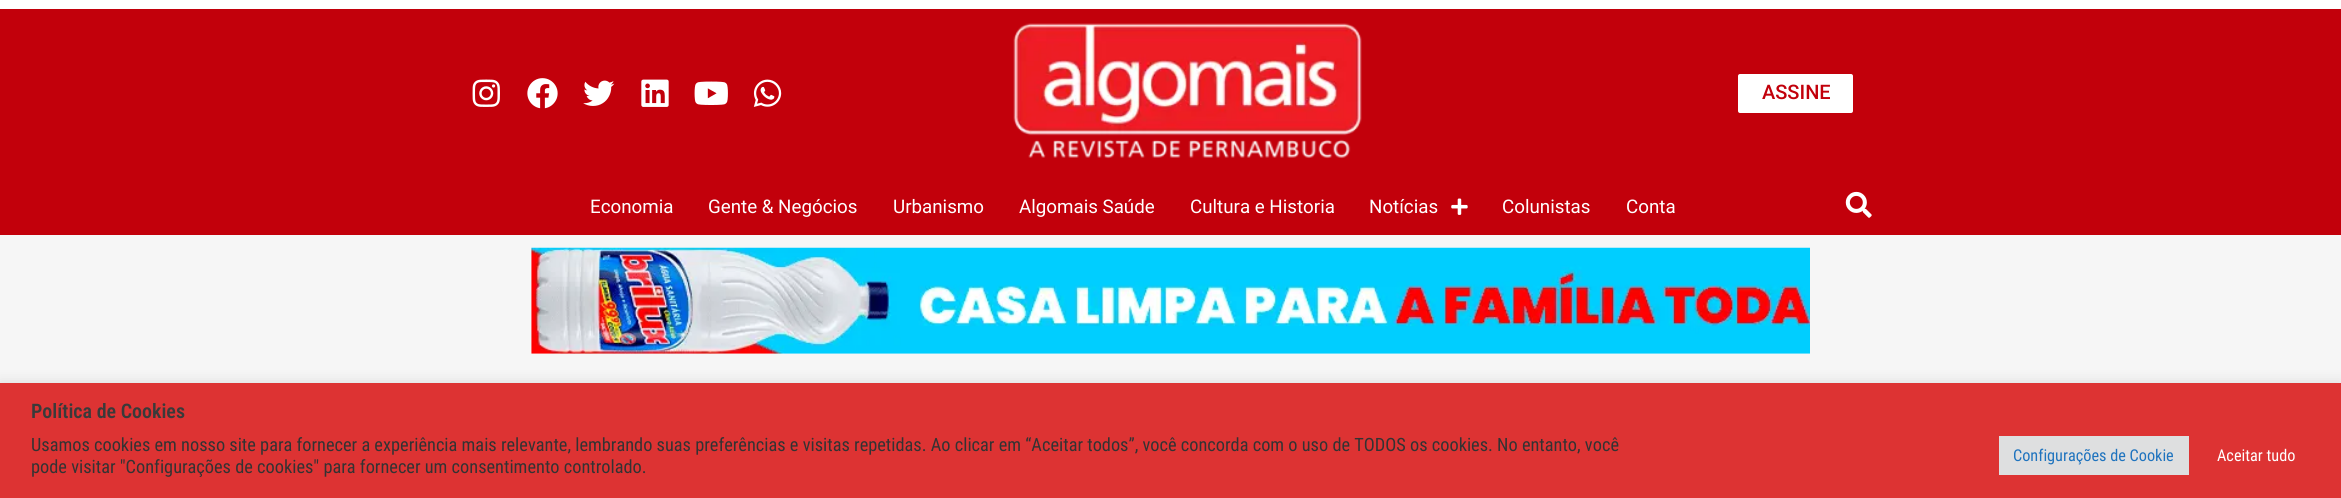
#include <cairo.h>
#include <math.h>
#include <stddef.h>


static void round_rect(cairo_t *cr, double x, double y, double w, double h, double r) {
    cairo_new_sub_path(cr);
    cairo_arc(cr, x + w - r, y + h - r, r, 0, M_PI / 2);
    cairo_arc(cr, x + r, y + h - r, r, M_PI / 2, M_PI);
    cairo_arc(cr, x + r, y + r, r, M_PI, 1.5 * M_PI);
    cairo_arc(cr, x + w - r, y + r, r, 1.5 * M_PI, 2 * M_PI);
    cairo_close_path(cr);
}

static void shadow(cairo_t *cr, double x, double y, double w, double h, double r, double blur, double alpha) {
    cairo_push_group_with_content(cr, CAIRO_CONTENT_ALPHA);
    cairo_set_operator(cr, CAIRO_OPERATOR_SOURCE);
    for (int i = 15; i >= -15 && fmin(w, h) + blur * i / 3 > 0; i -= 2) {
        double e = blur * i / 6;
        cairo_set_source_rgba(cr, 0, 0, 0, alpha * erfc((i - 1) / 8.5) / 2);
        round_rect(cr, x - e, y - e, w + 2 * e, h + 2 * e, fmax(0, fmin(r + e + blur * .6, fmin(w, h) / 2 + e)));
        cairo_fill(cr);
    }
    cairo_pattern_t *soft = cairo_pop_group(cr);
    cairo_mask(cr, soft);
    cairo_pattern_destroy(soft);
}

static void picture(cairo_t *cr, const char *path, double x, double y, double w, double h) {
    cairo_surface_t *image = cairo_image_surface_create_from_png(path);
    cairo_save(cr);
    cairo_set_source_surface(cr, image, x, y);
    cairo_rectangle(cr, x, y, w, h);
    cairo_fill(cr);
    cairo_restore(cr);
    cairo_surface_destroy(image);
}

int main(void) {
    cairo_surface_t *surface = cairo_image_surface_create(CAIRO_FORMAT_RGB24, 2341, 498);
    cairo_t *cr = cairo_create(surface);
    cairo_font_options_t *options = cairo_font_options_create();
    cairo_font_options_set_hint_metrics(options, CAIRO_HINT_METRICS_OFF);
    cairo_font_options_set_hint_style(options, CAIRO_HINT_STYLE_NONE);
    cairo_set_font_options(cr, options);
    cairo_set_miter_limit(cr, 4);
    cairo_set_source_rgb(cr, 0.961, 0.961, 0.961);
    cairo_paint(cr);
    cairo_set_source_rgb(cr, 1, 1, 1);
    cairo_rectangle(cr, 0, 0, 2341, 9);
    cairo_fill(cr);
    cairo_set_source_rgb(cr, 0.761, 0, 0.043);
    cairo_rectangle(cr, 0, 9, 2341, 226);
    cairo_fill(cr);
    picture(cr, "img1.png", 472, 79, 28, 28);
    picture(cr, "img2.png", 527, 78, 31, 31);
    picture(cr, "img3.png", 583, 80, 32, 26);
    picture(cr, "img4.png", 641, 79, 28, 28);
    picture(cr, "img5.png", 694, 81, 34, 24);
    picture(cr, "img6.png", 753, 79, 29, 28);
    picture(cr, "img7.png", 1013, 23, 349, 136);
    cairo_set_source_rgb(cr, 1, 1, 1);
    round_rect(cr, 1736.5, 72.5, 118, 42, 3.5);
    cairo_fill_preserve(cr);
    cairo_set_source_rgb(cr, 0.761, 0, 0.043);
    cairo_set_line_width(cr, 3);
    cairo_stroke(cr);
    cairo_select_font_face(cr, "Roboto Medium", CAIRO_FONT_SLANT_NORMAL, CAIRO_FONT_WEIGHT_NORMAL);
    cairo_set_font_size(cr, 20);
    cairo_move_to(cr, 1762, 99);
    cairo_show_text(cr, "ASSINE");
    cairo_select_font_face(cr, "Roboto", CAIRO_FONT_SLANT_NORMAL, CAIRO_FONT_WEIGHT_NORMAL);
    cairo_set_font_size(cr, 18.75);
    cairo_set_source_rgb(cr, 1, 1, 1);
    cairo_move_to(cr, 590, 213);
    cairo_show_text(cr, "Economia");
    cairo_move_to(cr, 708, 213);
    cairo_show_text(cr, "Gente & Negócios");
    cairo_move_to(cr, 893, 213);
    cairo_show_text(cr, "Urbanismo");
    cairo_move_to(cr, 1019, 213);
    cairo_show_text(cr, "Algomais Saúde");
    cairo_move_to(cr, 1190, 213);
    cairo_show_text(cr, "Cultura e Historia");
    cairo_move_to(cr, 1369, 213);
    cairo_show_text(cr, "Notícias");
    picture(cr, "img8.png", 1451, 198, 17, 17);
    cairo_move_to(cr, 1502, 213);
    cairo_show_text(cr, "Colunistas");
    cairo_move_to(cr, 1626, 213);
    cairo_show_text(cr, "Conta");
    picture(cr, "img9.png", 1845, 191, 27, 27);
    picture(cr, "img10.png", 531, 247, 1279, 107);
    cairo_set_source_rgb(cr, 0.675, 0.671, 0.671);
    shadow(cr, 0, 381, 2341, 117, 0, 6, 0.3);
    cairo_set_source_rgb(cr, 0.867, 0.2, 0.2);
    cairo_rectangle(cr, 0, 383, 2341, 115);
    cairo_fill(cr);
    cairo_select_font_face(cr, "Roboto Condensed SemiBold", CAIRO_FONT_SLANT_NORMAL, CAIRO_FONT_WEIGHT_NORMAL);
    cairo_set_font_size(cr, 20);
    cairo_set_source_rgb(cr, 0.227, 0.227, 0.227);
    cairo_move_to(cr, 31, 418);
    cairo_show_text(cr, "Política de Cookies");
    cairo_select_font_face(cr, "Roboto Condensed", CAIRO_FONT_SLANT_NORMAL, CAIRO_FONT_WEIGHT_NORMAL);
    cairo_set_font_size(cr, 18.33);
    cairo_set_source_rgb(cr, 0.2, 0.2, 0.2);
    cairo_move_to(cr, 31, 451);
    cairo_show_text(cr, "Usamos cookies em nosso site para fornecer a experiência mais relevante, lembrando suas preferências e visitas repetidas. Ao clicar em “Aceitar todos”, você concorda com o uso de TODOS os cookies. No entanto, você");
    cairo_move_to(cr, 31, 473);
    cairo_show_text(cr, "pode visitar \"Configurações de cookies\" para fornecer um consentimento controlado.");
    cairo_set_source_rgb(cr, 0.871, 0.875, 0.878);
    cairo_rectangle(cr, 1999, 436, 190, 39);
    cairo_fill(cr);
    cairo_set_font_size(cr, 16.25);
    cairo_set_source_rgb(cr, 0.118, 0.451, 0.745);
    cairo_move_to(cr, 2013, 461);
    cairo_show_text(cr, "Configurações de Cookie");
    cairo_set_source_rgb(cr, 1, 1, 1);
    cairo_move_to(cr, 2217, 461);
    cairo_show_text(cr, "Aceitar tudo");
    cairo_surface_write_to_png(surface, "page.png");
    cairo_font_options_destroy(options);
    cairo_destroy(cr);
    cairo_surface_destroy(surface);
    return 0;
}
